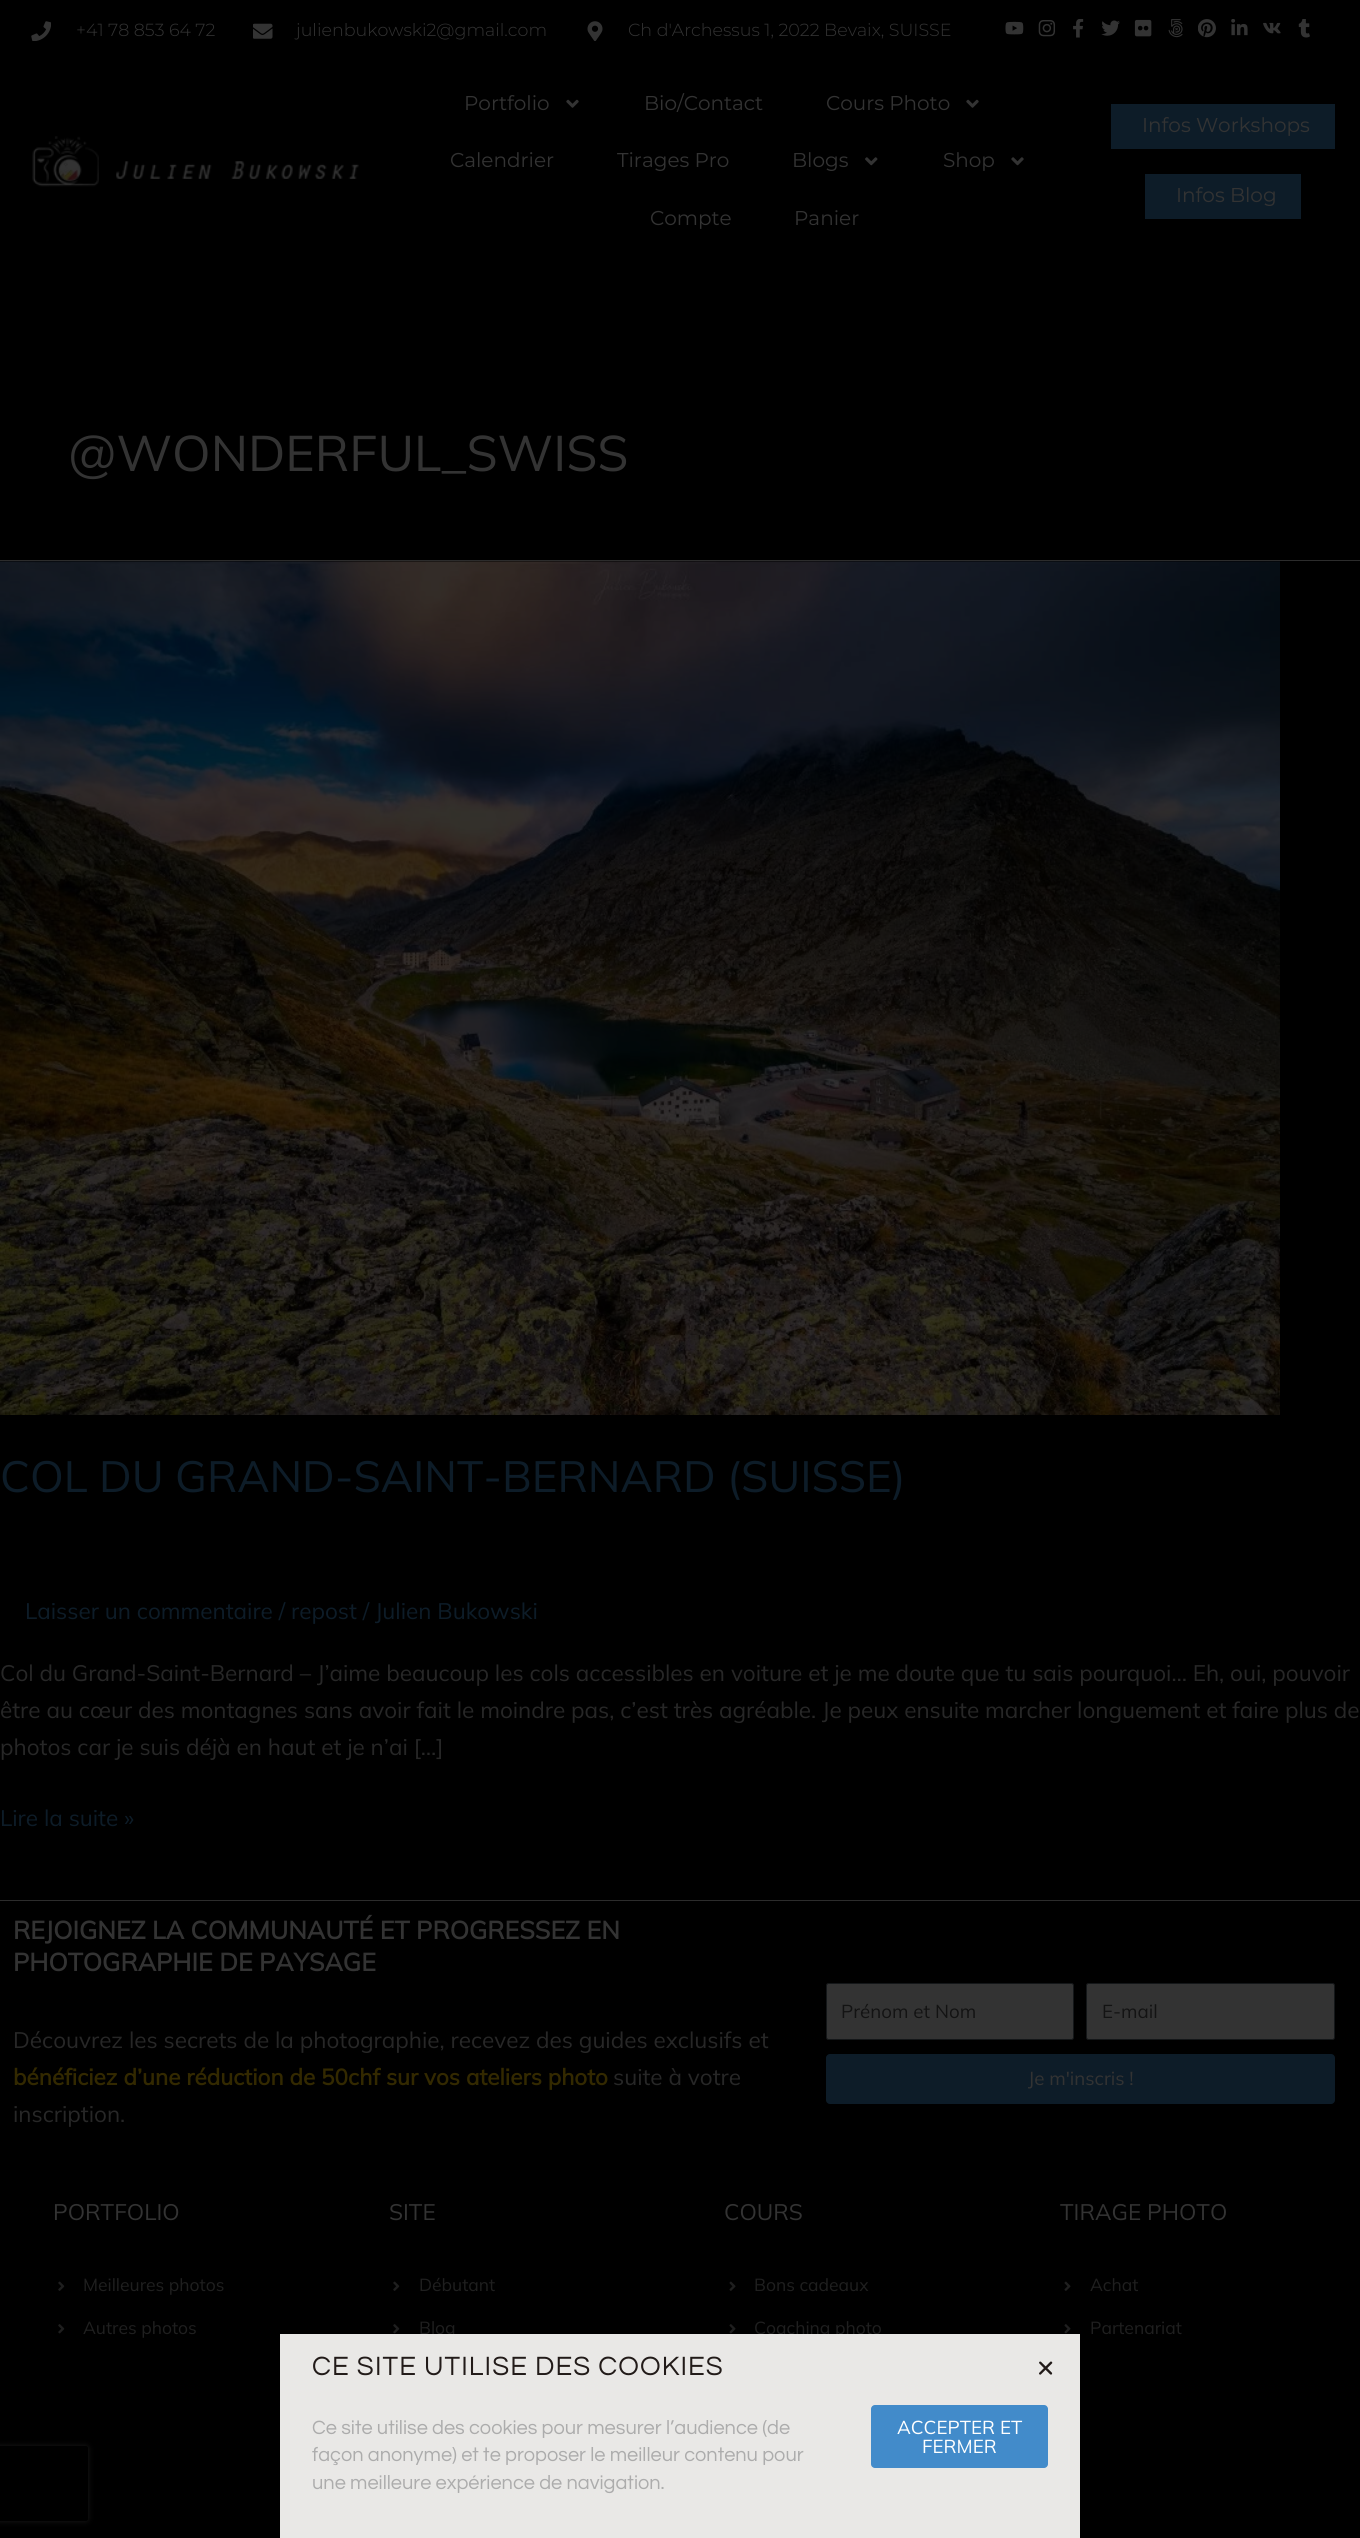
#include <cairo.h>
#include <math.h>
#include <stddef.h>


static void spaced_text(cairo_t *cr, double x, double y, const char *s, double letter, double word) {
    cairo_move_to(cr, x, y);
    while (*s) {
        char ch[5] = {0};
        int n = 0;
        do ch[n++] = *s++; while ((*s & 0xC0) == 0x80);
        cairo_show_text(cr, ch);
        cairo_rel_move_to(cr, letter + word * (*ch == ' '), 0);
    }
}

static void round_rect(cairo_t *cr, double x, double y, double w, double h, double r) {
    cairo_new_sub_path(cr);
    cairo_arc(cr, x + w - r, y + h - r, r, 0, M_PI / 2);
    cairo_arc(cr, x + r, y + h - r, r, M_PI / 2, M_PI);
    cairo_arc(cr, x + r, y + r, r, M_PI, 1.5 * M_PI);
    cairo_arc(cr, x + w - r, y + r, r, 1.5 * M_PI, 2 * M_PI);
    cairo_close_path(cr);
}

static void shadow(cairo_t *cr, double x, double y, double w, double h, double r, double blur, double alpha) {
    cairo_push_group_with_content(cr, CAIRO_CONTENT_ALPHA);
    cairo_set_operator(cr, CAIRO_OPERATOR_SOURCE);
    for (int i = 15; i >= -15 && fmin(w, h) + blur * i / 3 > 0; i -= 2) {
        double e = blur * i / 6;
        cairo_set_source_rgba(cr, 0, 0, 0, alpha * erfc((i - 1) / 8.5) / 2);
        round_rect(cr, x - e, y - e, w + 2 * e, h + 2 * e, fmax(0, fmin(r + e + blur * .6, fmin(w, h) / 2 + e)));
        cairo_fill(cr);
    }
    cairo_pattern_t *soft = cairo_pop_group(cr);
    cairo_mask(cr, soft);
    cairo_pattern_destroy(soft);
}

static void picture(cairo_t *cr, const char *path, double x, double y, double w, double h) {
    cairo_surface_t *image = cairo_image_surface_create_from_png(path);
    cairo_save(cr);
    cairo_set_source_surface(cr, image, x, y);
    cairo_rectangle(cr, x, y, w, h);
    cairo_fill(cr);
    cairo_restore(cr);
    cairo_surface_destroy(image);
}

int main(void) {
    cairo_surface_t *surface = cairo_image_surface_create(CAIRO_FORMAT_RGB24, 1360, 2538);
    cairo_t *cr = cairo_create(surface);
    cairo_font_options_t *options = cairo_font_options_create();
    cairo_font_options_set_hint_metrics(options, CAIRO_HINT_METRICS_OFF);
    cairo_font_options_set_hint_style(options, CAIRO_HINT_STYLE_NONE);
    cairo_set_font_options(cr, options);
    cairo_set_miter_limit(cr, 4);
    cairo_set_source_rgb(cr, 0, 0, 0);
    cairo_paint(cr);
    picture(cr, "img1.png", 31, 21, 20, 20);
    cairo_select_font_face(cr, "Montserrat Light", CAIRO_FONT_SLANT_NORMAL, CAIRO_FONT_WEIGHT_NORMAL);
    cairo_set_font_size(cr, 17.5);
    cairo_set_source_rgb(cr, 0.2, 0.2, 0.2);
    cairo_move_to(cr, 76, 36);
    cairo_show_text(cr, "+41 78 853 64 72");
    picture(cr, "img2.png", 253, 23, 20, 16);
    cairo_move_to(cr, 296, 36);
    cairo_show_text(cr, "julienbukowski2@gmail.com");
    picture(cr, "img3.png", 587, 21, 16, 20);
    cairo_move_to(cr, 628, 36);
    cairo_show_text(cr, "Ch d'Archessus 1, 2022 Bevaix, SUISSE");
    picture(cr, "img4.png", 1005, 21, 19, 14);
    picture(cr, "img5.png", 1038, 20, 18, 17);
    picture(cr, "img6.png", 1073, 19, 11, 19);
    picture(cr, "img7.png", 1101, 20, 19, 16);
    picture(cr, "img8.png", 1134, 19, 18, 18);
    picture(cr, "img9.png", 1168, 19, 15, 19);
    picture(cr, "img10.png", 1198, 19, 18, 19);
    picture(cr, "img11.png", 1231, 19, 17, 17);
    picture(cr, "img12.png", 1263, 22, 18, 12);
    picture(cr, "img13.png", 1298, 19, 12, 19);
    picture(cr, "img14.png", 32, 136, 327, 51);
    cairo_select_font_face(cr, "Montserrat", CAIRO_FONT_SLANT_NORMAL, CAIRO_FONT_WEIGHT_NORMAL);
    cairo_set_font_size(cr, 20);
    cairo_move_to(cr, 464, 110);
    cairo_show_text(cr, "Portfolio");
    picture(cr, "img15.png", 566, 99, 13, 9);
    cairo_move_to(cr, 644, 110);
    cairo_show_text(cr, "Bio/Contact");
    cairo_move_to(cr, 826, 110);
    cairo_show_text(cr, "Cours Photo");
    picture(cr, "img15.png", 966, 99, 13, 9);
    cairo_move_to(cr, 450, 167);
    cairo_show_text(cr, "Calendrier");
    cairo_move_to(cr, 617, 167);
    cairo_show_text(cr, "Tirages Pro");
    cairo_move_to(cr, 792, 167);
    cairo_show_text(cr, "Blogs");
    picture(cr, "img16.png", 865, 157, 13, 9);
    cairo_move_to(cr, 943, 167);
    cairo_show_text(cr, "Shop");
    picture(cr, "img17.png", 1011, 157, 13, 9);
    cairo_move_to(cr, 650, 225);
    cairo_show_text(cr, "Compte");
    cairo_move_to(cr, 794, 225);
    cairo_show_text(cr, "Panier");
    cairo_set_source_rgb(cr, 0.051, 0.11, 0.157);
    cairo_rectangle(cr, 1111, 104, 224, 45);
    cairo_fill(cr);
    cairo_set_source_rgb(cr, 0.2, 0.2, 0.2);
    cairo_move_to(cr, 1142, 132);
    cairo_show_text(cr, "Infos Workshops");
    cairo_set_source_rgb(cr, 0.051, 0.11, 0.157);
    cairo_rectangle(cr, 1145, 174, 156, 45);
    cairo_fill(cr);
    cairo_set_source_rgb(cr, 0.2, 0.2, 0.2);
    cairo_move_to(cr, 1176, 202);
    cairo_show_text(cr, "Infos Blog");
    cairo_set_source_rgb(cr, 0.173, 0.173, 0.173);
    cairo_rectangle(cr, 0, 560, 1360, 1);
    cairo_fill(cr);
    cairo_select_font_face(cr, "Mulish ExtraLight", CAIRO_FONT_SLANT_NORMAL, CAIRO_FONT_WEIGHT_NORMAL);
    cairo_set_font_size(cr, 50);
    cairo_set_source_rgb(cr, 0.2, 0.2, 0.2);
    cairo_move_to(cr, 68, 471);
    cairo_show_text(cr, "@WONDERFUL_SWISS");
    cairo_set_source_rgb(cr, 0.173, 0.173, 0.173);
    cairo_rectangle(cr, 0, 1900, 1360, 1);
    cairo_fill(cr);
    picture(cr, "img18.png", 0, 561, 1280, 854);
    cairo_set_font_size(cr, 43.75);
    cairo_set_source_rgb(cr, 0.051, 0.11, 0.157);
    cairo_move_to(cr, 0, 1492);
    cairo_show_text(cr, "COL DU GRAND-SAINT-BERNARD (SUISSE)");
    cairo_set_font_size(cr, 22.5);
    cairo_move_to(cr, 25, 1619);
    cairo_show_text(cr, "Laisser un commentaire / repost / Julien Bukowski");
    cairo_set_source_rgb(cr, 0.153, 0.153, 0.153);
    cairo_move_to(cr, 0, 1681);
    cairo_show_text(cr, "Col du Grand-Saint-Bernard – J’aime beaucoup les cols accessibles en voiture et je me doute que tu sais pourquoi… Eh, oui, pouvoir");
    cairo_move_to(cr, 0, 1718);
    cairo_show_text(cr, "être au cœur des montagnes sans avoir fait le moindre pas, c’est très agréable. Je peux ensuite marcher longuement et faire plus de");
    cairo_move_to(cr, 0, 1755);
    cairo_show_text(cr, "photos car je suis déjà en haut et je n’ai […]");
    cairo_set_source_rgb(cr, 0.051, 0.11, 0.157);
    cairo_move_to(cr, 0, 1826);
    cairo_show_text(cr, "Lire la suite »");
    cairo_select_font_face(cr, "Mulish", CAIRO_FONT_SLANT_NORMAL, CAIRO_FONT_WEIGHT_BOLD);
    cairo_set_font_size(cr, 25);
    cairo_set_source_rgb(cr, 0.2, 0.2, 0.2);
    cairo_move_to(cr, 13, 1939);
    cairo_show_text(cr, "REJOIGNEZ LA COMMUNAUTÉ ET PROGRESSEZ EN");
    cairo_move_to(cr, 13, 1971);
    cairo_show_text(cr, "PHOTOGRAPHIE DE PAYSAGE");
    cairo_select_font_face(cr, "Mulish ExtraLight", CAIRO_FONT_SLANT_NORMAL, CAIRO_FONT_WEIGHT_NORMAL);
    cairo_set_font_size(cr, 22.5);
    cairo_set_source_rgb(cr, 0.153, 0.153, 0.153);
    cairo_move_to(cr, 13, 2048);
    cairo_show_text(cr, "Découvrez les secrets de la photographie, recevez des guides exclusifs et");
    cairo_select_font_face(cr, "Mulish", CAIRO_FONT_SLANT_NORMAL, CAIRO_FONT_WEIGHT_BOLD);
    cairo_set_source_rgb(cr, 0.2, 0.161, 0);
    cairo_move_to(cr, 13, 2085);
    cairo_show_text(cr, "bénéficiez d’une réduction de 50chf sur vos ateliers photo");
    cairo_select_font_face(cr, "Mulish ExtraLight", CAIRO_FONT_SLANT_NORMAL, CAIRO_FONT_WEIGHT_NORMAL);
    cairo_set_source_rgb(cr, 0.153, 0.153, 0.153);
    cairo_move_to(cr, 613, 2085);
    cairo_show_text(cr, "suite à votre");
    cairo_move_to(cr, 13, 2122);
    cairo_show_text(cr, "inscription.");
    cairo_set_source_rgb(cr, 0.2, 0.2, 0.2);
    round_rect(cr, 826.5, 1983.5, 247, 56, 2);
    cairo_fill_preserve(cr);
    cairo_set_source_rgb(cr, 0.082, 0.09, 0.098);
    cairo_set_line_width(cr, 1);
    cairo_stroke(cr);
    cairo_set_font_size(cr, 18.75);
    cairo_set_source_rgb(cr, 0.078, 0.078, 0.078);
    cairo_move_to(cr, 841, 2018);
    cairo_show_text(cr, "Prénom et Nom");
    cairo_set_source_rgb(cr, 0.2, 0.2, 0.2);
    round_rect(cr, 1086.5, 1983.5, 248, 56, 2);
    cairo_fill_preserve(cr);
    cairo_set_source_rgb(cr, 0.082, 0.09, 0.098);
    cairo_stroke(cr);
    cairo_set_source_rgb(cr, 0.078, 0.078, 0.078);
    cairo_move_to(cr, 1102, 2018);
    cairo_show_text(cr, "E-mail");
    cairo_set_source_rgb(cr, 0.051, 0.11, 0.157);
    round_rect(cr, 826, 2054, 509, 50, 4);
    cairo_fill(cr);
    cairo_set_source_rgb(cr, 0.2, 0.2, 0.2);
    cairo_move_to(cr, 1028, 2085);
    cairo_show_text(cr, "Je m'inscris !");
    cairo_save(cr);
    cairo_set_fill_rule(cr, CAIRO_FILL_RULE_EVEN_ODD);
    cairo_new_path(cr);
    cairo_move_to(cr, 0, 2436);
    cairo_line_to(cr, 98, 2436);
    cairo_line_to(cr, 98, 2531);
    cairo_line_to(cr, 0, 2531);
    cairo_close_path(cr);
    cairo_move_to(cr, -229.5, 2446);
    cairo_line_to(cr, 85.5, 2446);
    cairo_curve_to(cr, 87, 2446, 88, 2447, 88, 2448.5);
    cairo_line_to(cr, 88, 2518.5);
    cairo_curve_to(cr, 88, 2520, 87, 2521, 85.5, 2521);
    cairo_line_to(cr, -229.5, 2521);
    cairo_curve_to(cr, -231, 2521, -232, 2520, -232, 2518.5);
    cairo_line_to(cr, -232, 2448.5);
    cairo_curve_to(cr, -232, 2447, -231, 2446, -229.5, 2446);
    cairo_close_path(cr);
    cairo_clip(cr);
    cairo_set_source_rgb(cr, 0.102, 0.102, 0.102);
    shadow(cr, -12, 2446, 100, 75, 2.5, 3, 1);
    cairo_restore(cr);
    cairo_set_font_size(cr, 22.5);
    cairo_move_to(cr, 53, 2220);
    cairo_show_text(cr, "PORTFOLIO");
    picture(cr, "img19.png", 58, 2281, 7, 10);
    cairo_set_font_size(cr, 17.5);
    cairo_set_source_rgb(cr, 0.122, 0.122, 0.122);
    cairo_move_to(cr, 83, 2291);
    cairo_show_text(cr, "Meilleures photos");
    picture(cr, "img20.png", 58, 2324, 7, 10);
    cairo_move_to(cr, 83, 2334);
    cairo_show_text(cr, "Autres photos");
    cairo_set_font_size(cr, 22.5);
    cairo_set_source_rgb(cr, 0.2, 0.2, 0.2);
    cairo_move_to(cr, 389, 2220);
    cairo_show_text(cr, "SITE");
    picture(cr, "img19.png", 393, 2281, 7, 10);
    cairo_set_font_size(cr, 17.5);
    cairo_set_source_rgb(cr, 0.122, 0.122, 0.122);
    cairo_move_to(cr, 419, 2291);
    cairo_show_text(cr, "Débutant");
    picture(cr, "img20.png", 393, 2324, 7, 10);
    cairo_move_to(cr, 419, 2334);
    cairo_show_text(cr, "Blog");
    cairo_set_font_size(cr, 22.5);
    cairo_set_source_rgb(cr, 0.2, 0.2, 0.2);
    cairo_move_to(cr, 724, 2220);
    cairo_show_text(cr, "COURS");
    picture(cr, "img21.png", 729, 2281, 7, 10);
    cairo_set_font_size(cr, 17.5);
    cairo_set_source_rgb(cr, 0.122, 0.122, 0.122);
    cairo_move_to(cr, 754, 2291);
    cairo_show_text(cr, "Bons cadeaux");
    picture(cr, "img22.png", 729, 2324, 7, 10);
    cairo_move_to(cr, 754, 2334);
    cairo_show_text(cr, "Coaching photo");
    cairo_set_font_size(cr, 22.5);
    cairo_set_source_rgb(cr, 0.2, 0.2, 0.2);
    cairo_move_to(cr, 1060, 2220);
    cairo_show_text(cr, "TIRAGE PHOTO");
    picture(cr, "img21.png", 1064, 2281, 7, 10);
    cairo_set_font_size(cr, 17.5);
    cairo_set_source_rgb(cr, 0.122, 0.122, 0.122);
    cairo_move_to(cr, 1090, 2291);
    cairo_show_text(cr, "Achat");
    picture(cr, "img22.png", 1064, 2324, 7, 10);
    cairo_move_to(cr, 1090, 2334);
    cairo_show_text(cr, "Partenariat");
    cairo_set_source_rgb(cr, 0.914, 0.91, 0.902);
    cairo_rectangle(cr, 280, 2334, 800, 204);
    cairo_fill(cr);
    cairo_select_font_face(cr, "Questrial", CAIRO_FONT_SLANT_NORMAL, CAIRO_FONT_WEIGHT_NORMAL);
    cairo_set_font_size(cr, 27.5);
    cairo_set_source_rgb(cr, 0.133, 0.106, 0.098);
    spaced_text(cr, 312, 2375, "CE SITE UTILISE DES COOKIES", 1.1, 0);
    cairo_set_font_size(cr, 20);
    cairo_set_source_rgb(cr, 0.675, 0.675, 0.675);
    cairo_move_to(cr, 312, 2434);
    cairo_show_text(cr, "Ce site utilise des cookies pour mesurer l’audience (de");
    cairo_move_to(cr, 312, 2461);
    cairo_show_text(cr, "façon anonyme) et te proposer le meilleur contenu pour");
    cairo_move_to(cr, 312, 2489);
    cairo_show_text(cr, "une meilleure expérience de navigation.");
    cairo_set_source_rgb(cr, 0.259, 0.545, 0.792);
    round_rect(cr, 871, 2405, 177, 63, 4);
    cairo_fill(cr);
    cairo_select_font_face(cr, "Mulish ExtraLight", CAIRO_FONT_SLANT_NORMAL, CAIRO_FONT_WEIGHT_NORMAL);
    cairo_set_font_size(cr, 18.75);
    cairo_set_source_rgb(cr, 1, 1, 1);
    cairo_move_to(cr, 897, 2434);
    cairo_show_text(cr, "ACCEPTER ET");
    cairo_move_to(cr, 922, 2453);
    cairo_show_text(cr, "FERMER");
    picture(cr, "img23.png", 1039, 2361, 14, 14);
    cairo_surface_write_to_png(surface, "page.png");
    cairo_font_options_destroy(options);
    cairo_destroy(cr);
    cairo_surface_destroy(surface);
    return 0;
}
